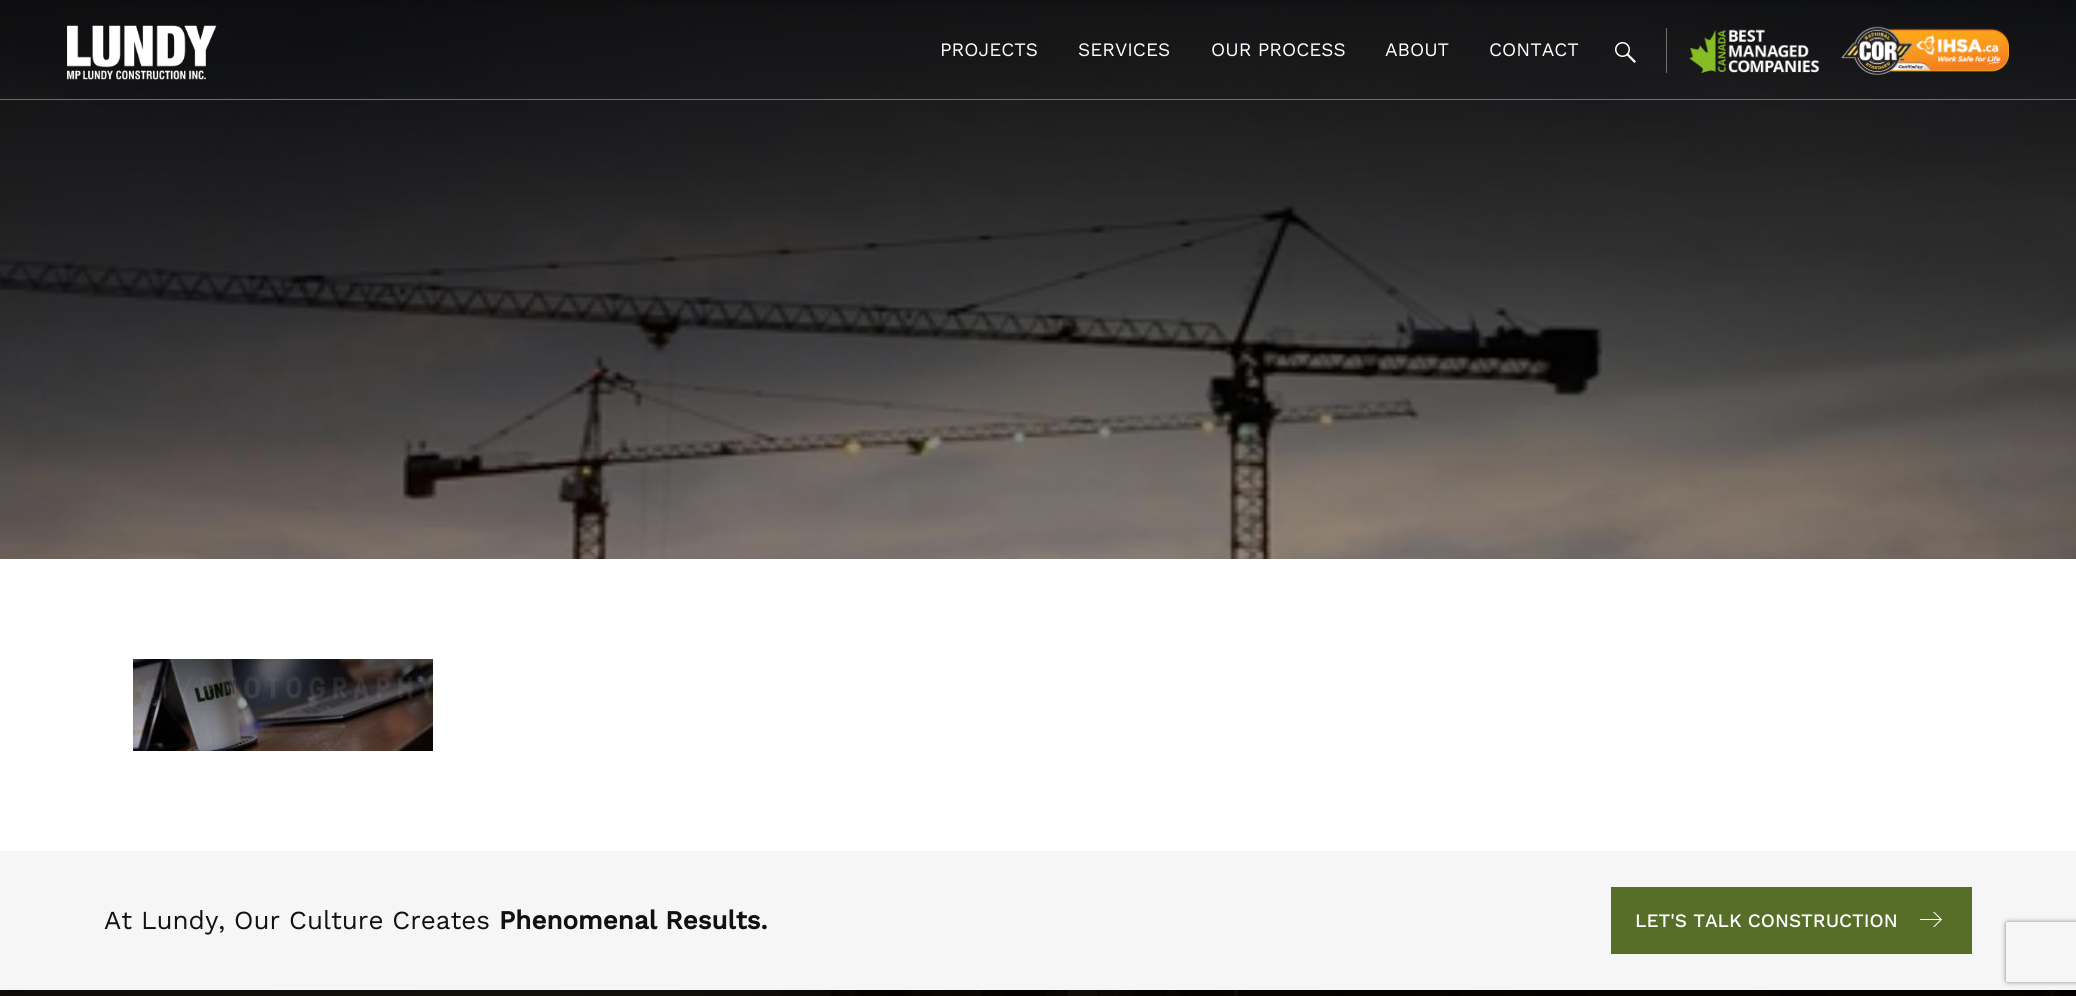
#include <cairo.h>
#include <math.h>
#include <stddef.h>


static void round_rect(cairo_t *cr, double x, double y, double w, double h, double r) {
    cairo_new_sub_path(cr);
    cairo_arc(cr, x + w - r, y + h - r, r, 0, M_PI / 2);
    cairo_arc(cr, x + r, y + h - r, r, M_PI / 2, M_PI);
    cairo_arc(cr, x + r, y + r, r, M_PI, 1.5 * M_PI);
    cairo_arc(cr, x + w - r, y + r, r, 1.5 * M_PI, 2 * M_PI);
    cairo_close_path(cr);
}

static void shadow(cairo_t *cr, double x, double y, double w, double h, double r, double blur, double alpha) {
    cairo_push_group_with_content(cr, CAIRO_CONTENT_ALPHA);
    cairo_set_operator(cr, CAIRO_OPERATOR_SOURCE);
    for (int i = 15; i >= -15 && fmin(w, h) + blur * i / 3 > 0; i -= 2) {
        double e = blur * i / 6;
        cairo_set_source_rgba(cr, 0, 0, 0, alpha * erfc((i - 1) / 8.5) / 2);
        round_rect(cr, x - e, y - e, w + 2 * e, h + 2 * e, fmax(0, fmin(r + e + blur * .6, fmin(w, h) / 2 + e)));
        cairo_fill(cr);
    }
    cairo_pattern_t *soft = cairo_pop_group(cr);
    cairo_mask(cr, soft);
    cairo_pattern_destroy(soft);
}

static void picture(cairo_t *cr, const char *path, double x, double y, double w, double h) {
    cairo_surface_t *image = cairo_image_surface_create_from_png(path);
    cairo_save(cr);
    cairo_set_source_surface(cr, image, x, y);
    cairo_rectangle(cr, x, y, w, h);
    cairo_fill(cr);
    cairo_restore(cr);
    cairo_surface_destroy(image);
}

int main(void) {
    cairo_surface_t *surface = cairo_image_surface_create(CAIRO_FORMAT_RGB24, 2076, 996);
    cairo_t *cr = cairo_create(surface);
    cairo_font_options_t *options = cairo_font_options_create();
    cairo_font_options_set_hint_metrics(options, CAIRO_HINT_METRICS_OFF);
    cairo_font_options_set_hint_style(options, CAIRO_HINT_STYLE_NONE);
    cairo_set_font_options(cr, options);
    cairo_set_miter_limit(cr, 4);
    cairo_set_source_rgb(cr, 1, 1, 1);
    cairo_paint(cr);
    picture(cr, "img1.png", 0, 0, 2076, 559);
    picture(cr, "img2.png", 0, 0, 2076, 559);
    cairo_set_source_rgb(cr, 0.431, 0.431, 0.435);
    cairo_rectangle(cr, 0, 99, 2076, 1);
    cairo_fill(cr);
    picture(cr, "img3.png", 67, 25, 150, 55);
    cairo_select_font_face(cr, "Work Sans", CAIRO_FONT_SLANT_NORMAL, CAIRO_FONT_WEIGHT_NORMAL);
    cairo_set_font_size(cr, 19);
    cairo_set_source_rgb(cr, 1, 1, 1);
    cairo_move_to(cr, 940, 56);
    cairo_show_text(cr, "PROJECTS");
    cairo_move_to(cr, 1078, 56);
    cairo_show_text(cr, "SERVICES");
    cairo_move_to(cr, 1211, 56);
    cairo_show_text(cr, "OUR PROCESS");
    cairo_move_to(cr, 1385, 56);
    cairo_show_text(cr, "ABOUT");
    cairo_move_to(cr, 1489, 56);
    cairo_show_text(cr, "CONTACT");
    picture(cr, "img4.png", 1615, 42, 21, 21);
    cairo_set_source_rgb(cr, 0.435, 0.435, 0.435);
    cairo_rectangle(cr, 1666, 28, 1, 45);
    cairo_fill(cr);
    picture(cr, "img5.png", 1689, 29, 130, 44);
    picture(cr, "img6.png", 1841, 26, 168, 49);
    picture(cr, "img7.png", 133, 659, 300, 92);
    cairo_set_source_rgb(cr, 0.961, 0.961, 0.961);
    cairo_rectangle(cr, 0, 851, 2076, 139);
    cairo_fill(cr);
    cairo_set_font_size(cr, 26);
    cairo_set_source_rgb(cr, 0.067, 0.067, 0.067);
    cairo_move_to(cr, 104, 929);
    cairo_show_text(cr, "At Lundy, Our Culture Creates");
    cairo_select_font_face(cr, "Work Sans", CAIRO_FONT_SLANT_NORMAL, CAIRO_FONT_WEIGHT_BOLD);
    cairo_move_to(cr, 499, 929);
    cairo_show_text(cr, "Phenomenal Results.");
    cairo_set_source_rgb(cr, 0.337, 0.431, 0.157);
    cairo_rectangle(cr, 1611, 887, 361, 67);
    cairo_fill(cr);
    cairo_select_font_face(cr, "Work Sans Medium", CAIRO_FONT_SLANT_NORMAL, CAIRO_FONT_WEIGHT_NORMAL);
    cairo_set_font_size(cr, 19);
    cairo_set_source_rgb(cr, 1, 1, 1);
    cairo_move_to(cr, 1635, 927);
    cairo_show_text(cr, "LET'S TALK CONSTRUCTION");
    picture(cr, "img8.png", 1920, 912, 22, 15);
    picture(cr, "img9.png", 0, 990, 2076, 6);
    cairo_save(cr);
    cairo_set_fill_rule(cr, CAIRO_FILL_RULE_EVEN_ODD);
    cairo_new_path(cr);
    cairo_move_to(cr, 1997, 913);
    cairo_line_to(cr, 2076, 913);
    cairo_line_to(cr, 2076, 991);
    cairo_line_to(cr, 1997, 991);
    cairo_close_path(cr);
    cairo_move_to(cr, 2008, 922);
    cairo_line_to(cr, 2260, 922);
    cairo_curve_to(cr, 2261, 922, 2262, 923, 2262, 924);
    cairo_line_to(cr, 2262, 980);
    cairo_curve_to(cr, 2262, 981, 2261, 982, 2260, 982);
    cairo_line_to(cr, 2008, 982);
    cairo_curve_to(cr, 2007, 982, 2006, 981, 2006, 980);
    cairo_line_to(cr, 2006, 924);
    cairo_curve_to(cr, 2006, 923, 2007, 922, 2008, 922);
    cairo_close_path(cr);
    cairo_clip(cr);
    cairo_set_source_rgb(cr, 0.502, 0.502, 0.502);
    shadow(cr, 2006, 922, 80, 60, 2, 2.5, 1);
    cairo_restore(cr);
    cairo_surface_write_to_png(surface, "page.png");
    cairo_font_options_destroy(options);
    cairo_destroy(cr);
    cairo_surface_destroy(surface);
    return 0;
}
